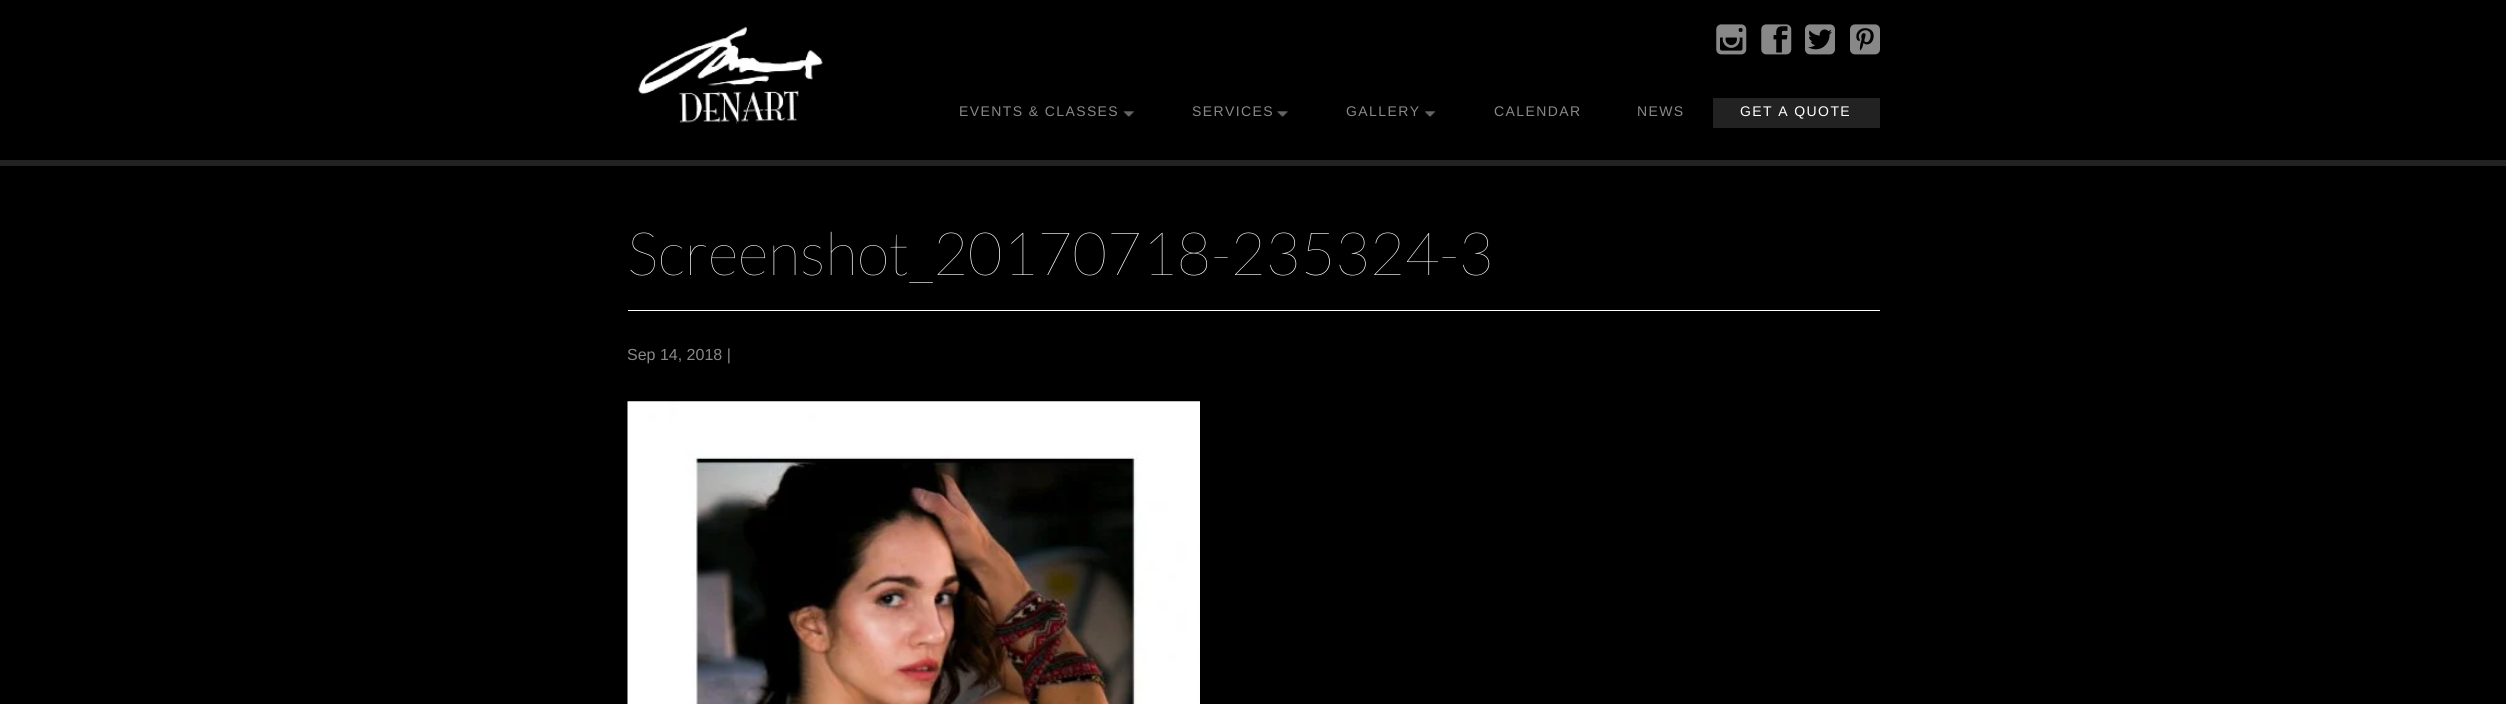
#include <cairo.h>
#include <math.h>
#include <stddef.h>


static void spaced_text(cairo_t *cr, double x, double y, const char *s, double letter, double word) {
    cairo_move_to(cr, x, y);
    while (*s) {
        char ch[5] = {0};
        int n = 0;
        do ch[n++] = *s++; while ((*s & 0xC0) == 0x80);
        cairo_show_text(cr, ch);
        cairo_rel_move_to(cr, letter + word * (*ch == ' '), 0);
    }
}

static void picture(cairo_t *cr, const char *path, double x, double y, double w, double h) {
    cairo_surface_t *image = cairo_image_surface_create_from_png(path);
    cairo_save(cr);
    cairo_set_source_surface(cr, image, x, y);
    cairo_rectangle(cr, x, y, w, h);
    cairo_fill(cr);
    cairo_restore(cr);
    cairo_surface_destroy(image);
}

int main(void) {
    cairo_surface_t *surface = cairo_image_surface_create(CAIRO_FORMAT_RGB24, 2506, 704);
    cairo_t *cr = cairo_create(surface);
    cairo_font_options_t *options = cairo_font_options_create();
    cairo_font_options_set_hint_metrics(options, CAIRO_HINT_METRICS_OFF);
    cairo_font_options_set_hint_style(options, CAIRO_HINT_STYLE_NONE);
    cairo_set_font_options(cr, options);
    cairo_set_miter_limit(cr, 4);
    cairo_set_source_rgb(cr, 0, 0, 0);
    cairo_paint(cr);
    cairo_set_source_rgb(cr, 0.133, 0.133, 0.133);
    cairo_rectangle(cr, 0, 160, 2506, 6);
    cairo_fill(cr);
    picture(cr, "img1.png", 638, 27, 185, 97);
    picture(cr, "img2.png", 1716, 24, 31, 31);
    picture(cr, "img3.png", 1761, 24, 31, 31);
    picture(cr, "img4.png", 1805, 24, 30, 31);
    picture(cr, "img5.png", 1850, 24, 30, 31);
    picture(cr, "img6.png", 1123, 111, 11, 6);
    cairo_select_font_face(cr, "Liberation Sans", CAIRO_FONT_SLANT_NORMAL, CAIRO_FONT_WEIGHT_NORMAL);
    cairo_set_font_size(cr, 14);
    cairo_set_source_rgb(cr, 0.533, 0.533, 0.533);
    spaced_text(cr, 959, 116, "EVENTS & CLASSES", 1.4, 0);
    picture(cr, "img7.png", 1277, 111, 11, 6);
    spaced_text(cr, 1192, 116, "SERVICES", 1.4, 0);
    picture(cr, "img8.png", 1425, 111, 11, 6);
    spaced_text(cr, 1346, 116, "GALLERY", 1.4, 0);
    spaced_text(cr, 1494, 116, "CALENDAR", 1.4, 0);
    spaced_text(cr, 1637, 116, "NEWS", 1.4, 0);
    cairo_set_source_rgb(cr, 0.133, 0.133, 0.133);
    cairo_rectangle(cr, 1713, 98, 167, 30);
    cairo_fill(cr);
    cairo_set_source_rgb(cr, 1, 1, 1);
    spaced_text(cr, 1740, 116, "GET A QUOTE", 1.4, 0);
    cairo_rectangle(cr, 628, 310, 1252, 1);
    cairo_fill(cr);
    cairo_select_font_face(cr, "Lato Thin", CAIRO_FONT_SLANT_NORMAL, CAIRO_FONT_WEIGHT_NORMAL);
    cairo_set_font_size(cr, 60);
    cairo_move_to(cr, 627, 275);
    cairo_show_text(cr, "Screenshot_20170718-235324-3");
    cairo_select_font_face(cr, "Liberation Sans", CAIRO_FONT_SLANT_NORMAL, CAIRO_FONT_WEIGHT_NORMAL);
    cairo_set_font_size(cr, 16);
    cairo_set_source_rgb(cr, 0.533, 0.533, 0.533);
    cairo_move_to(cr, 627, 360);
    cairo_show_text(cr, "Sep 14, 2018 |");
    picture(cr, "img9.png", 627, 401, 573, 303);
    cairo_surface_write_to_png(surface, "page.png");
    cairo_font_options_destroy(options);
    cairo_destroy(cr);
    cairo_surface_destroy(surface);
    return 0;
}
